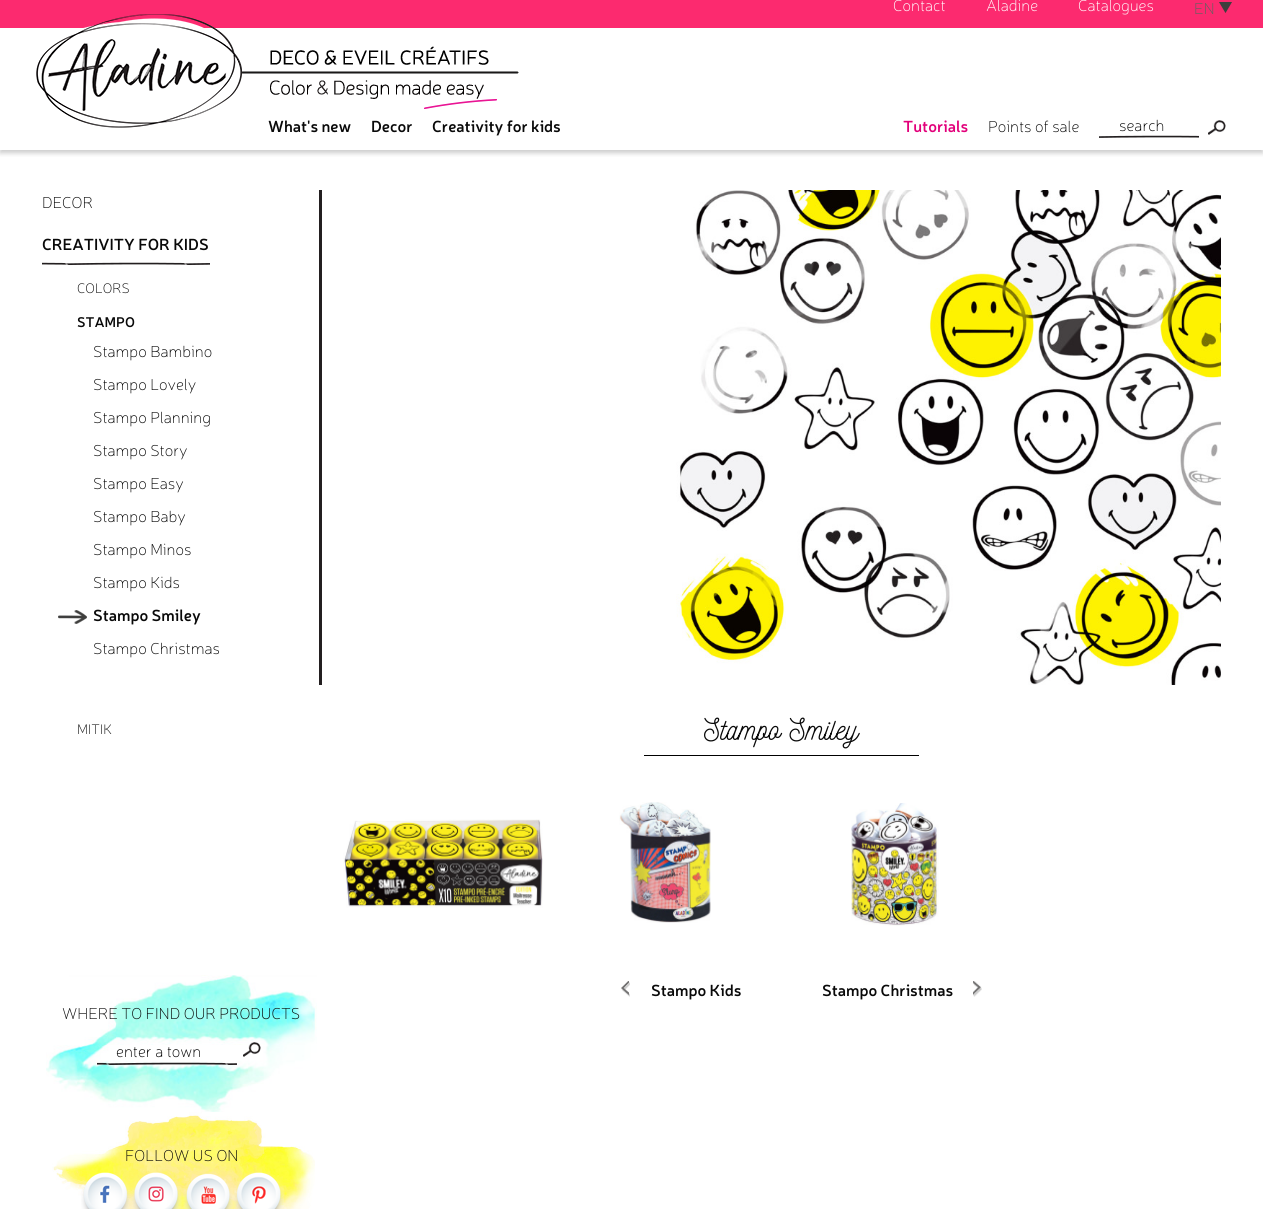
#include <cairo.h>
#include <math.h>
#include <stddef.h>


static void round_rect(cairo_t *cr, double x, double y, double w, double h, double r) {
    cairo_new_sub_path(cr);
    cairo_arc(cr, x + w - r, y + h - r, r, 0, M_PI / 2);
    cairo_arc(cr, x + r, y + h - r, r, M_PI / 2, M_PI);
    cairo_arc(cr, x + r, y + r, r, M_PI, 1.5 * M_PI);
    cairo_arc(cr, x + w - r, y + r, r, 1.5 * M_PI, 2 * M_PI);
    cairo_close_path(cr);
}

static void shadow(cairo_t *cr, double x, double y, double w, double h, double r, double blur, double alpha) {
    cairo_push_group_with_content(cr, CAIRO_CONTENT_ALPHA);
    cairo_set_operator(cr, CAIRO_OPERATOR_SOURCE);
    for (int i = 15; i >= -15 && fmin(w, h) + blur * i / 3 > 0; i -= 2) {
        double e = blur * i / 6;
        cairo_set_source_rgba(cr, 0, 0, 0, alpha * erfc((i - 1) / 8.5) / 2);
        round_rect(cr, x - e, y - e, w + 2 * e, h + 2 * e, fmax(0, fmin(r + e + blur * .6, fmin(w, h) / 2 + e)));
        cairo_fill(cr);
    }
    cairo_pattern_t *soft = cairo_pop_group(cr);
    cairo_mask(cr, soft);
    cairo_pattern_destroy(soft);
}

static void picture(cairo_t *cr, const char *path, double x, double y, double w, double h) {
    cairo_surface_t *image = cairo_image_surface_create_from_png(path);
    cairo_save(cr);
    cairo_set_source_surface(cr, image, x, y);
    cairo_rectangle(cr, x, y, w, h);
    cairo_fill(cr);
    cairo_restore(cr);
    cairo_surface_destroy(image);
}

int main(void) {
    cairo_surface_t *surface = cairo_image_surface_create(CAIRO_FORMAT_RGB24, 1263, 1209);
    cairo_t *cr = cairo_create(surface);
    cairo_font_options_t *options = cairo_font_options_create();
    cairo_font_options_set_hint_metrics(options, CAIRO_HINT_METRICS_OFF);
    cairo_font_options_set_hint_style(options, CAIRO_HINT_STYLE_NONE);
    cairo_set_font_options(cr, options);
    cairo_set_miter_limit(cr, 4);
    cairo_set_source_rgb(cr, 1, 1, 1);
    cairo_paint(cr);
    cairo_save(cr);
    cairo_rectangle(cr, 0, 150, 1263, 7);
    cairo_clip(cr);
    cairo_set_source_rgb(cr, 0.306, 0.306, 0.306);
    shadow(cr, 0, -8, 1263, 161, 0, 2.5, 0.3);
    cairo_restore(cr);
    cairo_set_source_rgb(cr, 0.988, 0.165, 0.435);
    cairo_rectangle(cr, 0, 0, 1263, 28);
    cairo_fill(cr);
    cairo_select_font_face(cr, "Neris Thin", CAIRO_FONT_SLANT_NORMAL, CAIRO_FONT_WEIGHT_NORMAL);
    cairo_set_font_size(cr, 16);
    cairo_set_source_rgb(cr, 1, 1, 1);
    cairo_move_to(cr, 893, 11);
    cairo_show_text(cr, "Contact");
    cairo_move_to(cr, 986, 11);
    cairo_show_text(cr, "Aladine");
    cairo_move_to(cr, 1078, 11);
    cairo_show_text(cr, "Catalogues");
    cairo_set_source_rgb(cr, 0.38, 0.38, 0.376);
    cairo_move_to(cr, 1194, 14);
    cairo_show_text(cr, "EN");
    picture(cr, "img1.png", 1219, 2, 13, 11);
    picture(cr, "img2.png", 36, 14, 206, 114);
    picture(cr, "img3.png", 242, 46, 277, 63);
    cairo_select_font_face(cr, "Neris SemiBold", CAIRO_FONT_SLANT_NORMAL, CAIRO_FONT_WEIGHT_NORMAL);
    cairo_set_source_rgb(cr, 0.039, 0.039, 0.039);
    cairo_move_to(cr, 268, 132);
    cairo_show_text(cr, "What's new");
    cairo_move_to(cr, 371, 132);
    cairo_show_text(cr, "Decor");
    cairo_move_to(cr, 432, 132);
    cairo_show_text(cr, "Creativity for kids");
    cairo_set_source_rgb(cr, 0.886, 0, 0.478);
    cairo_move_to(cr, 903, 132);
    cairo_show_text(cr, "Tutorials");
    cairo_select_font_face(cr, "Neris Thin", CAIRO_FONT_SLANT_NORMAL, CAIRO_FONT_WEIGHT_NORMAL);
    cairo_set_source_rgb(cr, 0.039, 0.039, 0.039);
    cairo_move_to(cr, 988, 132);
    cairo_show_text(cr, "Points of sale");
    picture(cr, "img4.png", 1099, 135, 100, 3);
    cairo_set_source_rgb(cr, 0, 0, 0);
    cairo_move_to(cr, 1119, 131);
    cairo_show_text(cr, "search");
    picture(cr, "img5.png", 1208, 120, 18, 15);
    cairo_set_source_rgb(cr, 0.039, 0.039, 0.039);
    cairo_move_to(cr, 42, 208);
    cairo_show_text(cr, "DECOR");
    picture(cr, "img6.png", 42, 262, 168, 3);
    cairo_select_font_face(cr, "Neris SemiBold", CAIRO_FONT_SLANT_NORMAL, CAIRO_FONT_WEIGHT_NORMAL);
    cairo_move_to(cr, 42, 250);
    cairo_show_text(cr, "CREATIVITY FOR KIDS");
    cairo_select_font_face(cr, "Neris Thin", CAIRO_FONT_SLANT_NORMAL, CAIRO_FONT_WEIGHT_NORMAL);
    cairo_set_font_size(cr, 14);
    cairo_move_to(cr, 77, 293);
    cairo_show_text(cr, "COLORS");
    cairo_select_font_face(cr, "Neris SemiBold", CAIRO_FONT_SLANT_NORMAL, CAIRO_FONT_WEIGHT_NORMAL);
    cairo_move_to(cr, 77, 327);
    cairo_show_text(cr, "STAMPO");
    cairo_select_font_face(cr, "Neris Thin", CAIRO_FONT_SLANT_NORMAL, CAIRO_FONT_WEIGHT_NORMAL);
    cairo_set_font_size(cr, 16);
    cairo_move_to(cr, 93, 357);
    cairo_show_text(cr, "Stampo Bambino");
    cairo_move_to(cr, 93, 390);
    cairo_show_text(cr, "Stampo Lovely");
    cairo_move_to(cr, 93, 423);
    cairo_show_text(cr, "Stampo Planning");
    cairo_move_to(cr, 93, 456);
    cairo_show_text(cr, "Stampo Story");
    cairo_move_to(cr, 93, 489);
    cairo_show_text(cr, "Stampo Easy");
    cairo_move_to(cr, 93, 522);
    cairo_show_text(cr, "Stampo Baby");
    cairo_move_to(cr, 93, 555);
    cairo_show_text(cr, "Stampo Minos");
    cairo_move_to(cr, 93, 588);
    cairo_show_text(cr, "Stampo Kids");
    picture(cr, "img7.png", 58, 610, 29, 14);
    cairo_select_font_face(cr, "Neris SemiBold", CAIRO_FONT_SLANT_NORMAL, CAIRO_FONT_WEIGHT_NORMAL);
    cairo_move_to(cr, 93, 621);
    cairo_show_text(cr, "Stampo Smiley");
    cairo_select_font_face(cr, "Neris Thin", CAIRO_FONT_SLANT_NORMAL, CAIRO_FONT_WEIGHT_NORMAL);
    cairo_move_to(cr, 93, 654);
    cairo_show_text(cr, "Stampo Christmas");
    cairo_set_font_size(cr, 14);
    cairo_move_to(cr, 77, 734);
    cairo_show_text(cr, "MITIK");
    cairo_set_source_rgb(cr, 0.137, 0.122, 0.125);
    cairo_rectangle(cr, 319, 190, 3, 495);
    cairo_fill(cr);
    picture(cr, "img8.png", 46, 975, 271, 137);
    cairo_set_font_size(cr, 16);
    cairo_set_source_rgb(cr, 0.039, 0.039, 0.039);
    cairo_move_to(cr, 62, 1019);
    cairo_show_text(cr, "WHERE TO FIND OUR PRODUCTS");
    picture(cr, "img9.png", 97, 1062, 140, 3);
    cairo_set_source_rgb(cr, 0, 0, 0);
    cairo_move_to(cr, 116, 1057);
    cairo_show_text(cr, "enter a town");
    picture(cr, "img10.png", 243, 1042, 18, 15);
    picture(cr, "img11.png", 52, 1112, 263, 97);
    cairo_set_source_rgb(cr, 0.039, 0.039, 0.039);
    cairo_move_to(cr, 125, 1161);
    cairo_show_text(cr, "FOLLOW US ON");
    picture(cr, "img12.png", 81, 1172, 50, 37);
    picture(cr, "img13.png", 131, 1172, 51, 37);
    picture(cr, "img14.png", 182, 1173, 51, 36);
    picture(cr, "img15.png", 233, 1172, 51, 37);
    picture(cr, "img16.png", 676, 190, 545, 495);
    cairo_set_source_rgb(cr, 0, 0, 0);
    cairo_rectangle(cr, 644, 755, 275, 1);
    cairo_fill(cr);
    cairo_select_font_face(cr, "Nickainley", CAIRO_FONT_SLANT_NORMAL, CAIRO_FONT_WEIGHT_NORMAL);
    cairo_set_font_size(cr, 30);
    cairo_set_source_rgb(cr, 0.039, 0.039, 0.039);
    cairo_move_to(cr, 704, 740);
    cairo_show_text(cr, "Stampo Smiley");
    picture(cr, "img17.png", 343, 819, 200, 89);
    picture(cr, "img18.png", 619, 802, 92, 121);
    picture(cr, "img19.png", 851, 803, 88, 123);
    picture(cr, "img20.png", 621, 981, 9, 16);
    cairo_select_font_face(cr, "Neris SemiBold", CAIRO_FONT_SLANT_NORMAL, CAIRO_FONT_WEIGHT_NORMAL);
    cairo_set_font_size(cr, 16);
    cairo_move_to(cr, 651, 996);
    cairo_show_text(cr, "Stampo Kids");
    picture(cr, "img21.png", 973, 981, 9, 16);
    cairo_move_to(cr, 822, 996);
    cairo_show_text(cr, "Stampo Christmas");
    cairo_surface_write_to_png(surface, "page.png");
    cairo_font_options_destroy(options);
    cairo_destroy(cr);
    cairo_surface_destroy(surface);
    return 0;
}
